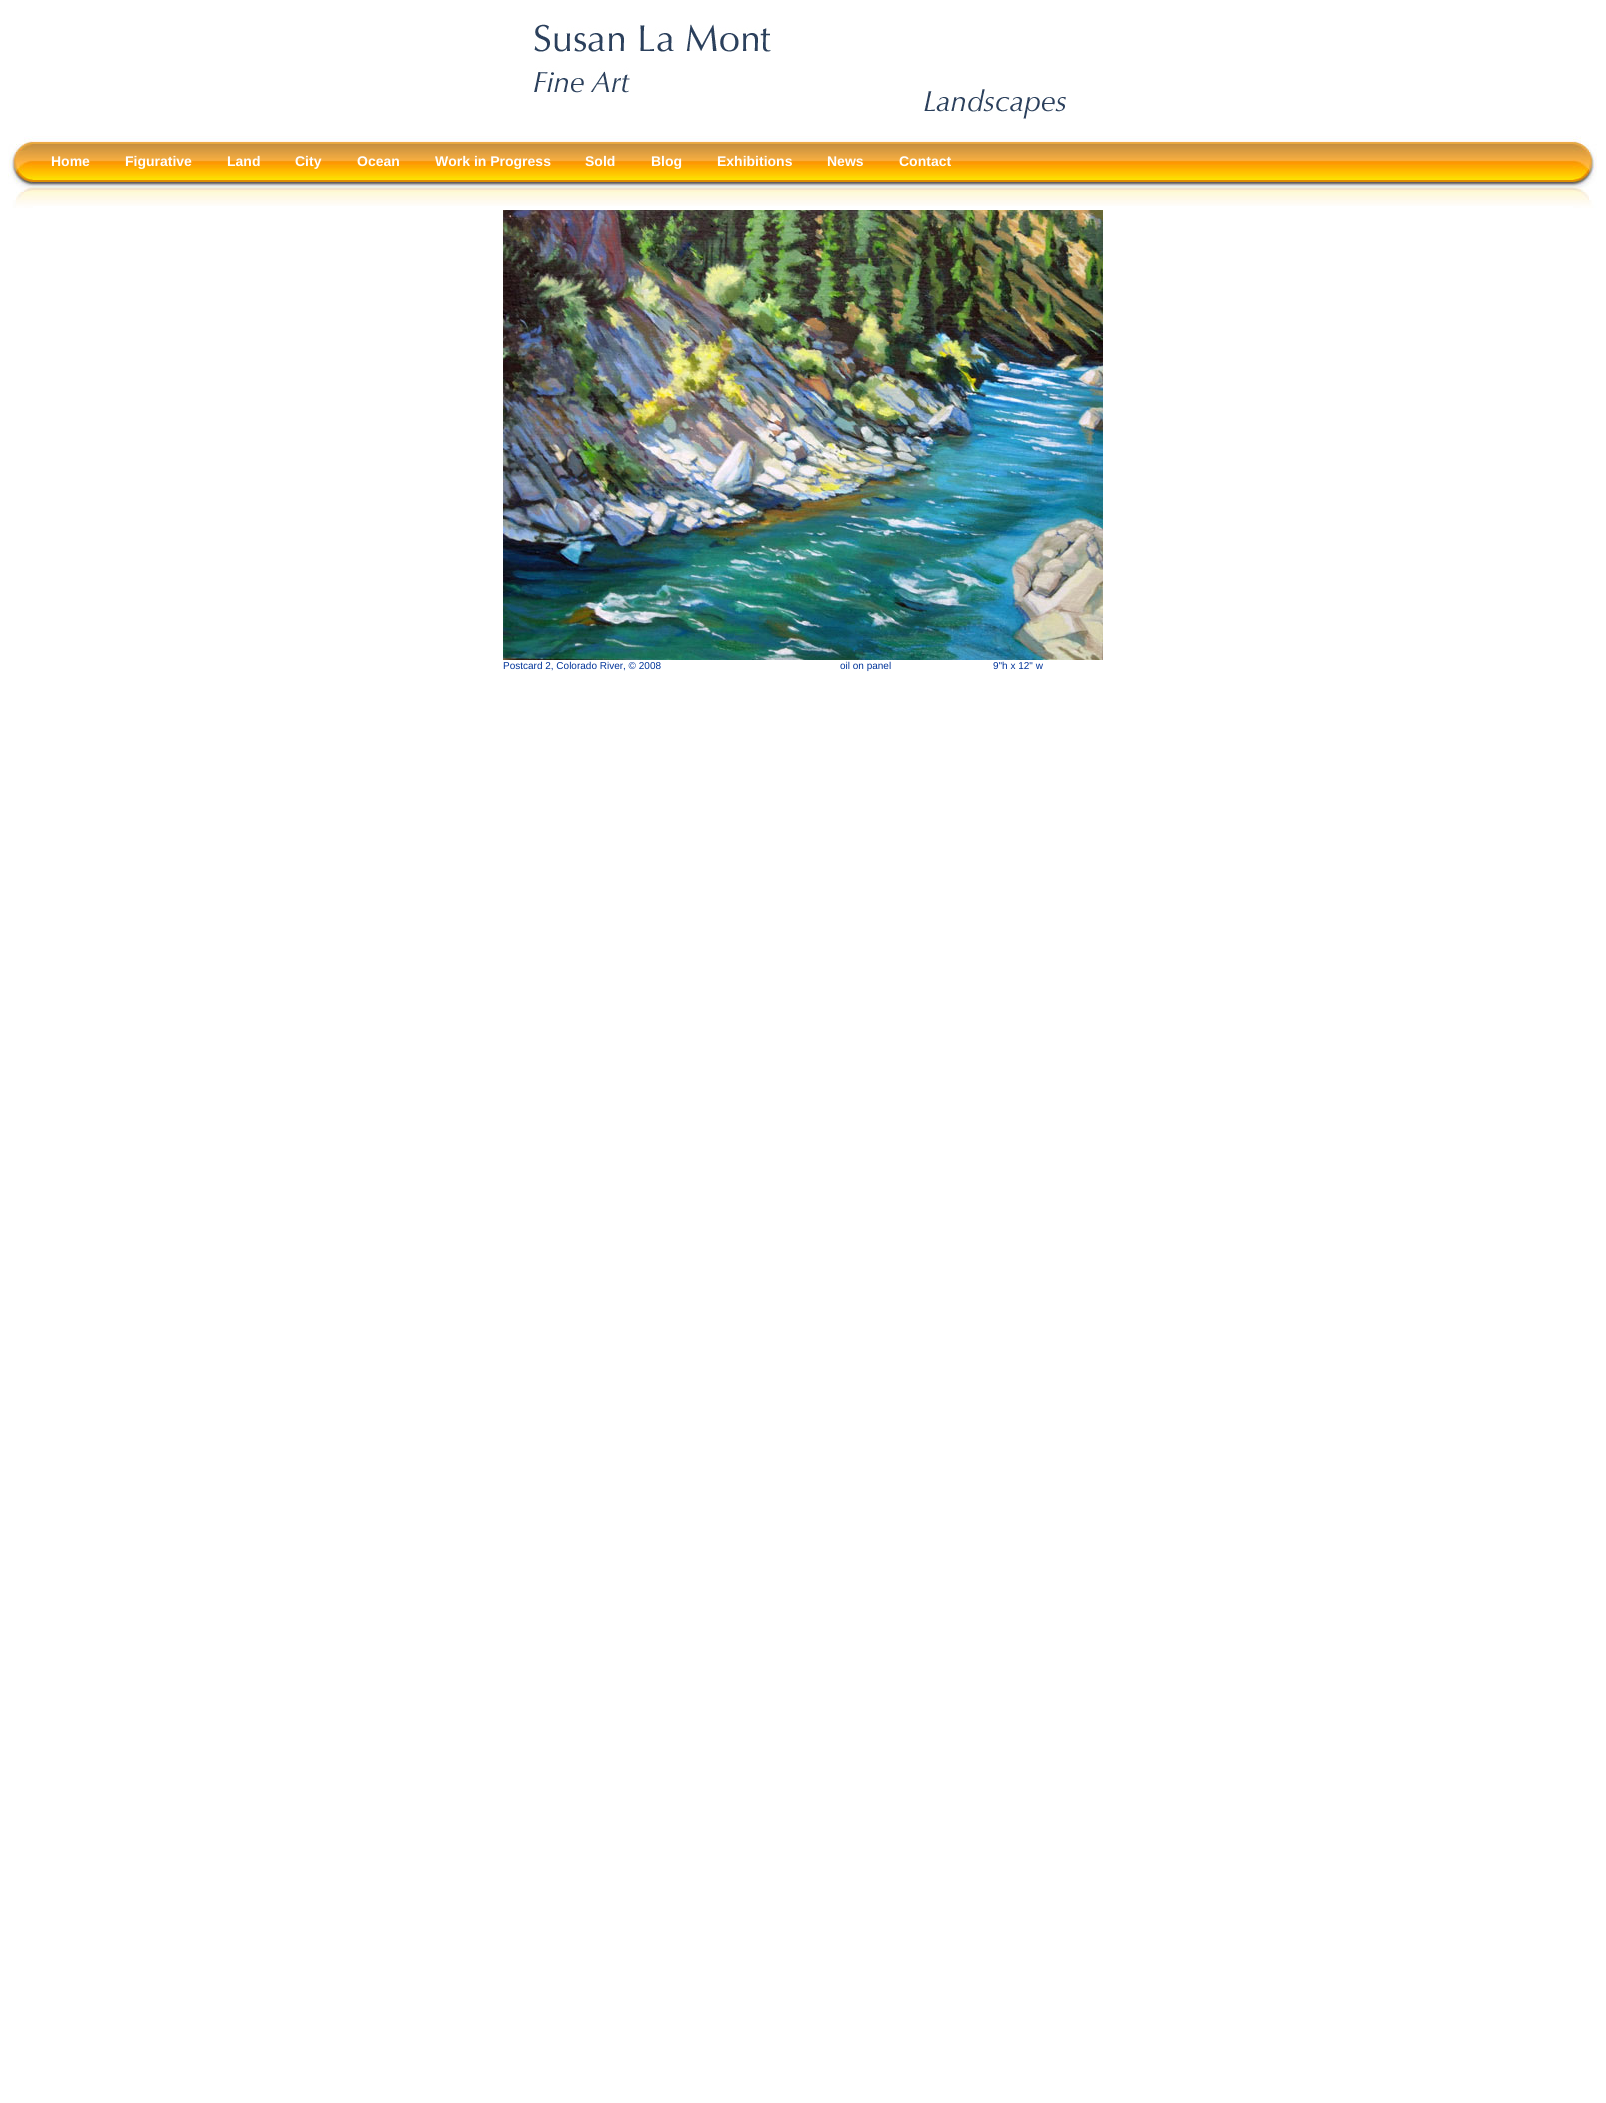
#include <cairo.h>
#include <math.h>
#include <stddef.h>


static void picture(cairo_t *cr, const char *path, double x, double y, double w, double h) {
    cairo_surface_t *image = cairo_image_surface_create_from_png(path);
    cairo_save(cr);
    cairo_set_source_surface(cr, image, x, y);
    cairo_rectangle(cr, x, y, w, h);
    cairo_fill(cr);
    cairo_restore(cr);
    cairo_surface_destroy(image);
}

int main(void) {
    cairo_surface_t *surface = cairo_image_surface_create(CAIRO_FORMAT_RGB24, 1606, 2103);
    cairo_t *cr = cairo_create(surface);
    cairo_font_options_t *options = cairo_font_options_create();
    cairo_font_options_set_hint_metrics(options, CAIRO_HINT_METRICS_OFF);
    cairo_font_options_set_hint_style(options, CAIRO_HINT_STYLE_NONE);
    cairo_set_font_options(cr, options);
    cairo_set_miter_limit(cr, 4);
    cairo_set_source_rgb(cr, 1, 1, 1);
    cairo_paint(cr);
    picture(cr, "img1.png", 534, 24, 237, 72);
    picture(cr, "img2.png", 924, 89, 142, 30);
    picture(cr, "img3.png", 33, 136, 1540, 70);
    picture(cr, "img4.png", 8, 136, 25, 72);
    cairo_select_font_face(cr, "Liberation Sans", CAIRO_FONT_SLANT_NORMAL, CAIRO_FONT_WEIGHT_BOLD);
    cairo_set_font_size(cr, 14);
    cairo_set_source_rgb(cr, 1, 1, 1);
    cairo_move_to(cr, 51, 166);
    cairo_show_text(cr, "Home");
    cairo_move_to(cr, 125, 166);
    cairo_show_text(cr, "Figurative");
    cairo_move_to(cr, 227, 166);
    cairo_show_text(cr, "Land");
    cairo_move_to(cr, 295, 166);
    cairo_show_text(cr, "City");
    cairo_move_to(cr, 357, 166);
    cairo_show_text(cr, "Ocean");
    cairo_move_to(cr, 435, 166);
    cairo_show_text(cr, "Work in Progress");
    cairo_move_to(cr, 585, 166);
    cairo_show_text(cr, "Sold");
    cairo_move_to(cr, 651, 166);
    cairo_show_text(cr, "Blog");
    cairo_move_to(cr, 717, 166);
    cairo_show_text(cr, "Exhibitions");
    cairo_move_to(cr, 827, 166);
    cairo_show_text(cr, "News");
    cairo_move_to(cr, 899, 166);
    cairo_show_text(cr, "Contact");
    picture(cr, "img5.png", 1573, 136, 25, 72);
    picture(cr, "img6.png", 503, 210, 600, 450);
    cairo_select_font_face(cr, "Liberation Sans", CAIRO_FONT_SLANT_NORMAL, CAIRO_FONT_WEIGHT_NORMAL);
    cairo_set_font_size(cr, 10);
    cairo_set_source_rgb(cr, 0, 0.2, 0.6);
    cairo_move_to(cr, 503, 669);
    cairo_show_text(cr, "Postcard 2, Colorado River, © 2008");
    cairo_move_to(cr, 840, 669);
    cairo_show_text(cr, "oil on panel");
    cairo_move_to(cr, 993, 669);
    cairo_show_text(cr, "9\"h x 12\" w");
    cairo_surface_write_to_png(surface, "page.png");
    cairo_font_options_destroy(options);
    cairo_destroy(cr);
    cairo_surface_destroy(surface);
    return 0;
}
